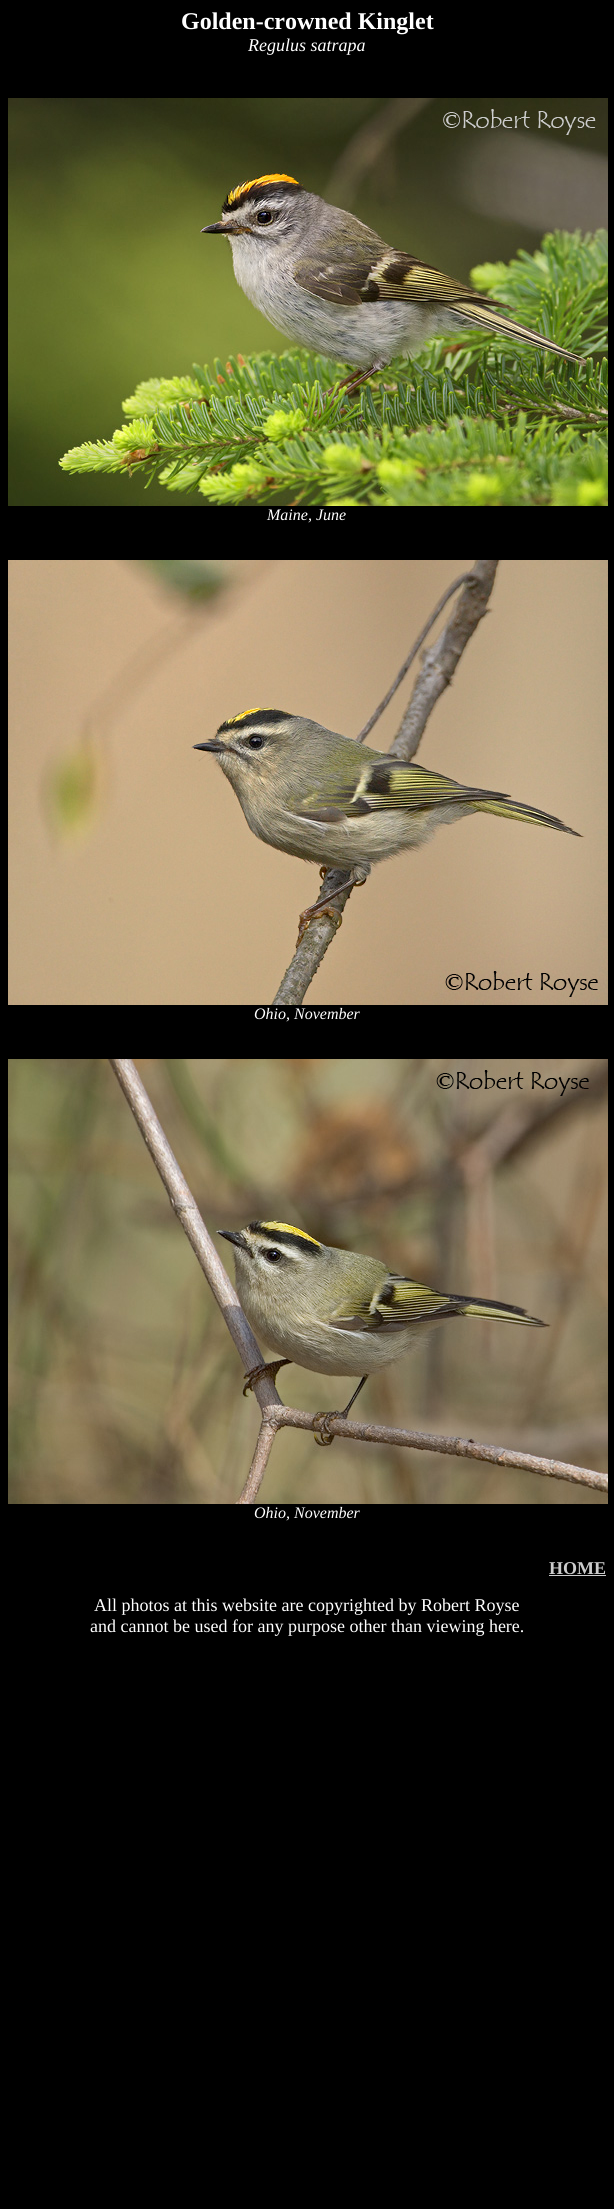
#include <cairo.h>
#include <math.h>
#include <stddef.h>


static void picture(cairo_t *cr, const char *path, double x, double y, double w, double h) {
    cairo_surface_t *image = cairo_image_surface_create_from_png(path);
    cairo_save(cr);
    cairo_set_source_surface(cr, image, x, y);
    cairo_rectangle(cr, x, y, w, h);
    cairo_fill(cr);
    cairo_restore(cr);
    cairo_surface_destroy(image);
}

int main(void) {
    cairo_surface_t *surface = cairo_image_surface_create(CAIRO_FORMAT_RGB24, 614, 2209);
    cairo_t *cr = cairo_create(surface);
    cairo_font_options_t *options = cairo_font_options_create();
    cairo_font_options_set_hint_metrics(options, CAIRO_HINT_METRICS_OFF);
    cairo_font_options_set_hint_style(options, CAIRO_HINT_STYLE_NONE);
    cairo_set_font_options(cr, options);
    cairo_set_miter_limit(cr, 4);
    cairo_set_source_rgb(cr, 0, 0, 0);
    cairo_paint(cr);
    cairo_select_font_face(cr, "Liberation Serif", CAIRO_FONT_SLANT_NORMAL, CAIRO_FONT_WEIGHT_BOLD);
    cairo_set_font_size(cr, 24);
    cairo_set_source_rgb(cr, 1, 1, 1);
    cairo_move_to(cr, 181, 29);
    cairo_show_text(cr, "Golden-crowned Kinglet");
    cairo_select_font_face(cr, "Liberation Serif", CAIRO_FONT_SLANT_ITALIC, CAIRO_FONT_WEIGHT_NORMAL);
    cairo_set_font_size(cr, 18);
    cairo_move_to(cr, 248, 51);
    cairo_show_text(cr, "Regulus satrapa");
    picture(cr, "img1.png", 8, 98, 600, 408);
    cairo_set_font_size(cr, 16);
    cairo_move_to(cr, 267, 520);
    cairo_show_text(cr, "Maine, June");
    picture(cr, "img2.png", 8, 560, 600, 445);
    cairo_move_to(cr, 254, 1019);
    cairo_show_text(cr, "Ohio, November");
    picture(cr, "img3.png", 8, 1059, 600, 445);
    cairo_move_to(cr, 254, 1518);
    cairo_show_text(cr, "Ohio, November");
    cairo_select_font_face(cr, "Liberation Serif", CAIRO_FONT_SLANT_NORMAL, CAIRO_FONT_WEIGHT_BOLD);
    cairo_set_font_size(cr, 18);
    cairo_set_source_rgb(cr, 0.8, 0.8, 0.8);
    cairo_move_to(cr, 549, 1574);
    cairo_show_text(cr, "HOME");
    cairo_rectangle(cr, 549, 1575, 57, 1);
    cairo_fill(cr);
    cairo_select_font_face(cr, "Liberation Serif", CAIRO_FONT_SLANT_NORMAL, CAIRO_FONT_WEIGHT_NORMAL);
    cairo_set_source_rgb(cr, 1, 1, 1);
    cairo_move_to(cr, 94, 1611);
    cairo_show_text(cr, "All photos at this website are copyrighted by Robert Royse");
    cairo_move_to(cr, 90, 1632);
    cairo_show_text(cr, "and cannot be used for any purpose other than viewing here.");
    cairo_surface_write_to_png(surface, "page.png");
    cairo_font_options_destroy(options);
    cairo_destroy(cr);
    cairo_surface_destroy(surface);
    return 0;
}
